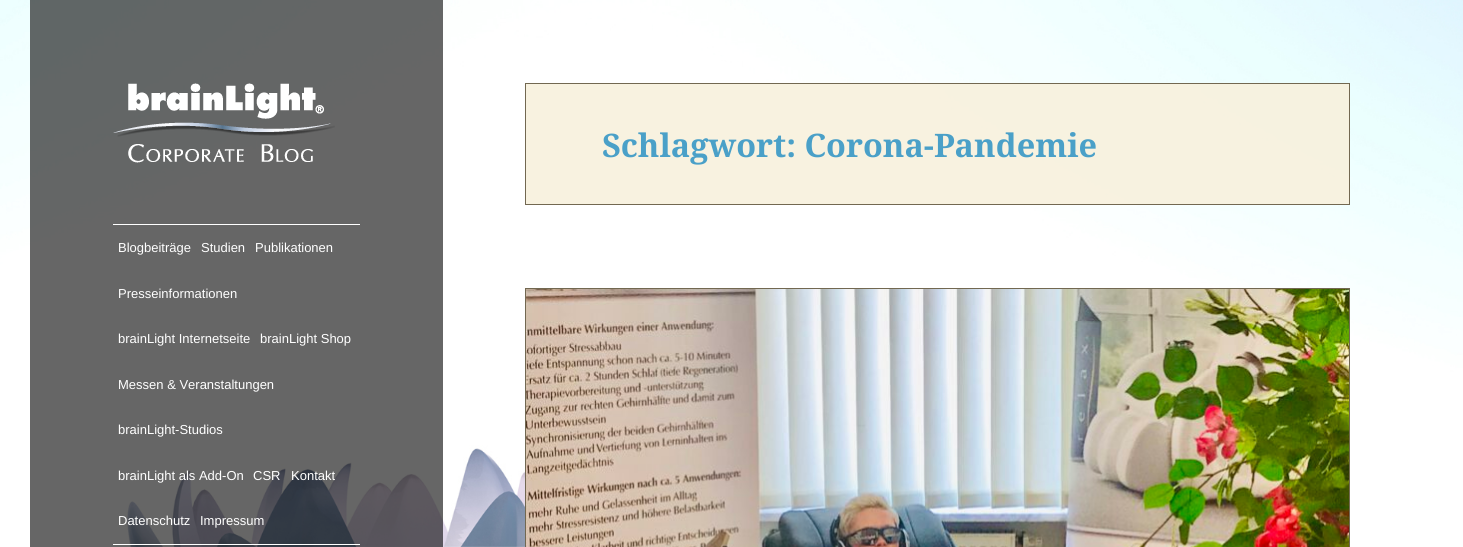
#include <cairo.h>
#include <math.h>
#include <stddef.h>


static void picture(cairo_t *cr, const char *path, double x, double y, double w, double h) {
    cairo_surface_t *image = cairo_image_surface_create_from_png(path);
    cairo_save(cr);
    cairo_set_source_surface(cr, image, x, y);
    cairo_rectangle(cr, x, y, w, h);
    cairo_fill(cr);
    cairo_restore(cr);
    cairo_surface_destroy(image);
}

int main(void) {
    cairo_surface_t *surface = cairo_image_surface_create(CAIRO_FORMAT_RGB24, 1463, 547);
    cairo_t *cr = cairo_create(surface);
    cairo_font_options_t *options = cairo_font_options_create();
    cairo_font_options_set_hint_metrics(options, CAIRO_HINT_METRICS_OFF);
    cairo_font_options_set_hint_style(options, CAIRO_HINT_STYLE_NONE);
    cairo_set_font_options(cr, options);
    cairo_set_miter_limit(cr, 4);
    cairo_set_source_rgb(cr, 1, 1, 1);
    cairo_paint(cr);
    picture(cr, "img1.png", 0, 0, 1463, 547);
    cairo_set_source_rgba(cr, 0.969, 0.945, 0.867, 0.9);
    cairo_rectangle(cr, 525.5, 83.5, 824, 121);
    cairo_fill_preserve(cr);
    cairo_set_source_rgb(cr, 0.447, 0.408, 0.318);
    cairo_set_line_width(cr, 1);
    cairo_stroke(cr);
    cairo_select_font_face(cr, "Noto Serif", CAIRO_FONT_SLANT_NORMAL, CAIRO_FONT_WEIGHT_BOLD);
    cairo_set_font_size(cr, 32.4);
    cairo_set_source_rgb(cr, 0.29, 0.627, 0.784);
    cairo_move_to(cr, 602, 157);
    cairo_show_text(cr, "Schlagwort: Corona-Pandemie");
    cairo_rectangle(cr, 525.5, 288.5, 824, 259);
    cairo_set_source_rgb(cr, 0.447, 0.408, 0.318);
    cairo_stroke(cr);
    picture(cr, "img2.png", 526, 289, 823, 258);
    cairo_set_source_rgba(cr, 0, 0, 0, 0.6);
    cairo_rectangle(cr, 30, 0, 413, 547);
    cairo_fill(cr);
    picture(cr, "img3.png", 113, 83, 222, 80);
    cairo_set_source_rgb(cr, 1, 1, 1);
    cairo_rectangle(cr, 113, 224, 247, 1);
    cairo_fill(cr);
    cairo_rectangle(cr, 113, 544, 247, 1);
    cairo_fill(cr);
    cairo_select_font_face(cr, "Liberation Sans", CAIRO_FONT_SLANT_NORMAL, CAIRO_FONT_WEIGHT_NORMAL);
    cairo_set_font_size(cr, 13);
    cairo_move_to(cr, 118, 252);
    cairo_show_text(cr, "Blogbeiträge");
    cairo_move_to(cr, 201, 252);
    cairo_show_text(cr, "Studien");
    cairo_move_to(cr, 255, 252);
    cairo_show_text(cr, "Publikationen");
    cairo_move_to(cr, 118, 298);
    cairo_show_text(cr, "Presseinformationen");
    cairo_move_to(cr, 118, 343);
    cairo_show_text(cr, "brainLight Internetseite");
    cairo_move_to(cr, 260, 343);
    cairo_show_text(cr, "brainLight Shop");
    cairo_move_to(cr, 118, 389);
    cairo_show_text(cr, "Messen & Veranstaltungen");
    cairo_move_to(cr, 118, 434);
    cairo_show_text(cr, "brainLight-Studios");
    cairo_move_to(cr, 118, 480);
    cairo_show_text(cr, "brainLight als Add-On");
    cairo_move_to(cr, 253, 480);
    cairo_show_text(cr, "CSR");
    cairo_move_to(cr, 291, 480);
    cairo_show_text(cr, "Kontakt");
    cairo_move_to(cr, 118, 525);
    cairo_show_text(cr, "Datenschutz");
    cairo_move_to(cr, 200, 525);
    cairo_show_text(cr, "Impressum");
    cairo_surface_write_to_png(surface, "page.png");
    cairo_font_options_destroy(options);
    cairo_destroy(cr);
    cairo_surface_destroy(surface);
    return 0;
}
